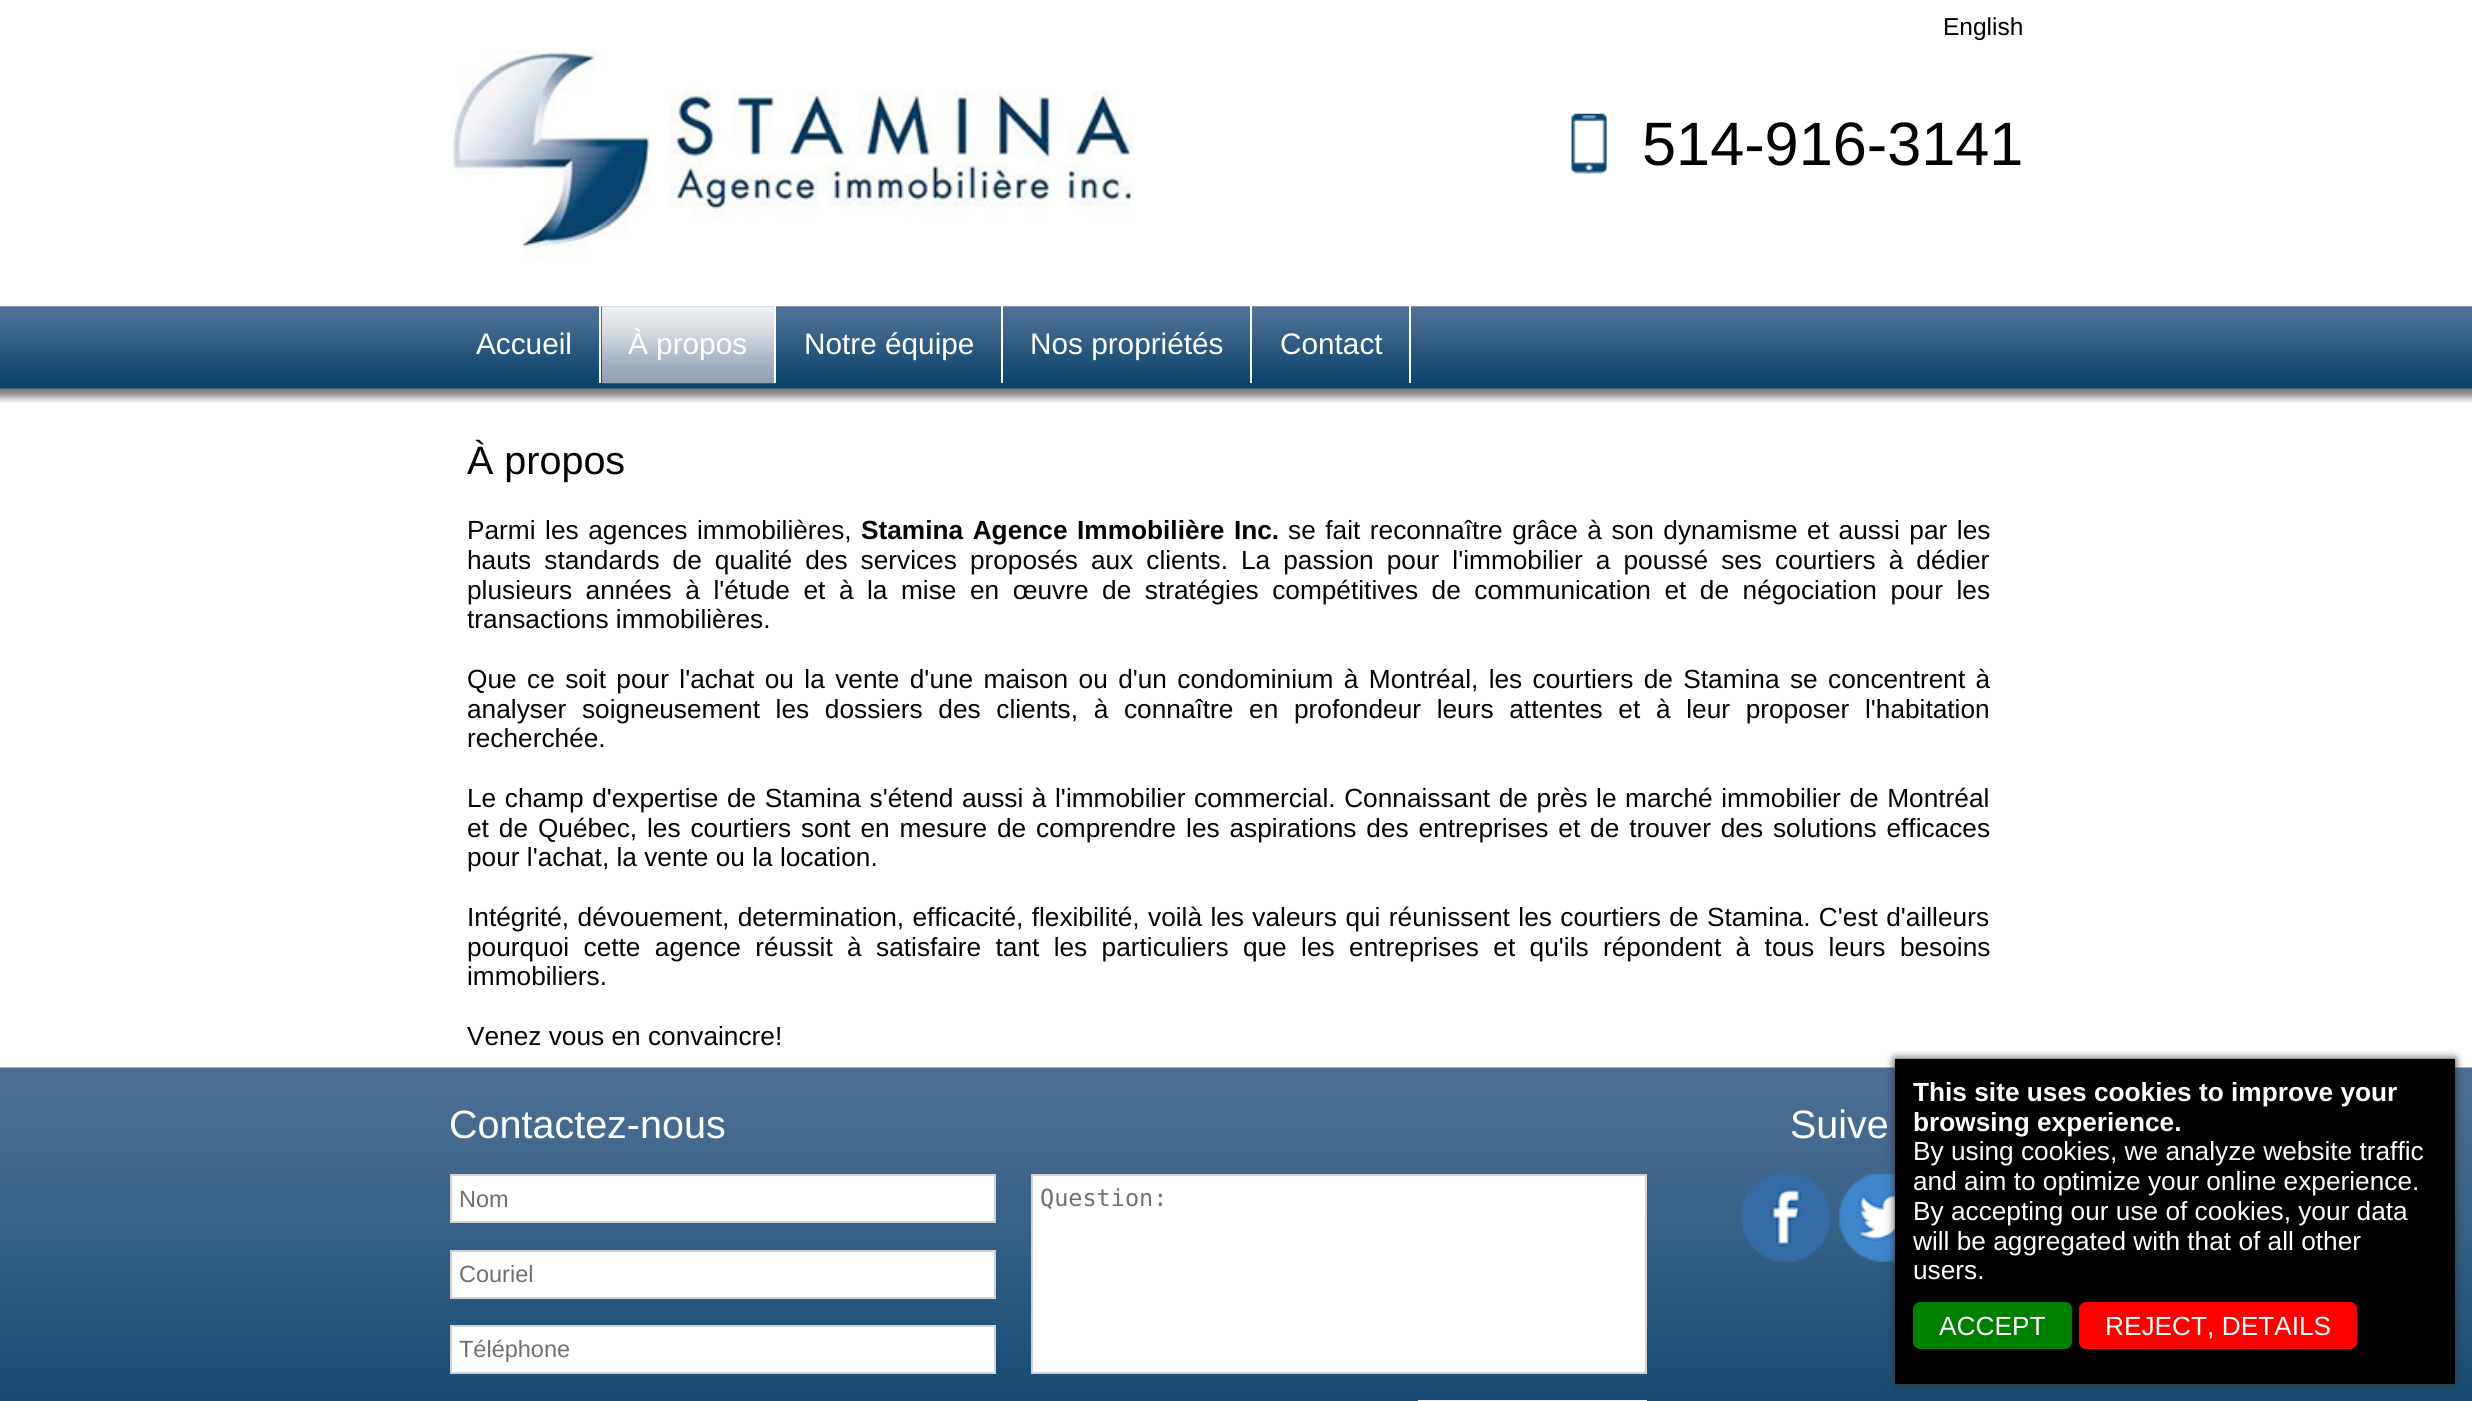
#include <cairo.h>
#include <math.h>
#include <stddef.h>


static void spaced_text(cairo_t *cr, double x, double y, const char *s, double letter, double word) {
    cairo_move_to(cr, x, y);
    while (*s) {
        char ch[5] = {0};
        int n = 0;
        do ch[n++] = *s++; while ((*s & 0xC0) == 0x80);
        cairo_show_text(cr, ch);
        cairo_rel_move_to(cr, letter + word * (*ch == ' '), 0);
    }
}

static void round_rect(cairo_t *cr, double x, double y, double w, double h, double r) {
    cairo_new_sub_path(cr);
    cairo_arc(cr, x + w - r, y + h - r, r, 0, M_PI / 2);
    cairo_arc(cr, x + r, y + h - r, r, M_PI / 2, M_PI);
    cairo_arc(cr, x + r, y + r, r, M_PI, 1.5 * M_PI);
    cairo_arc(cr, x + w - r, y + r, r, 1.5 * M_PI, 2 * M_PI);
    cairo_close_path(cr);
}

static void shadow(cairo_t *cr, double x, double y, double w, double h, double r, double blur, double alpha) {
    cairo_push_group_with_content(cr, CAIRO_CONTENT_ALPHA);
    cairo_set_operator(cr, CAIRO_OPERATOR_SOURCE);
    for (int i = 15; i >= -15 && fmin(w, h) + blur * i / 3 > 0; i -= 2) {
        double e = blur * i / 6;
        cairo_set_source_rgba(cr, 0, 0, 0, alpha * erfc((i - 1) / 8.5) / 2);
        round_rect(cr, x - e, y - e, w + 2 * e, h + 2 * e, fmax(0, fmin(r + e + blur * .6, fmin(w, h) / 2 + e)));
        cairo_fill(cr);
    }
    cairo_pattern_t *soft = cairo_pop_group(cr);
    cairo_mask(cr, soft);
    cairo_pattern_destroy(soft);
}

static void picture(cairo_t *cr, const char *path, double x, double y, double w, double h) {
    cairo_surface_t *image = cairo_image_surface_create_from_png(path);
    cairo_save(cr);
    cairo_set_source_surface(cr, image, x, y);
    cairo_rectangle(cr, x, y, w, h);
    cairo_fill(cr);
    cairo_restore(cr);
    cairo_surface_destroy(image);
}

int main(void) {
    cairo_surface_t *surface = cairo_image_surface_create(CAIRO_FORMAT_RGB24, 2472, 1401);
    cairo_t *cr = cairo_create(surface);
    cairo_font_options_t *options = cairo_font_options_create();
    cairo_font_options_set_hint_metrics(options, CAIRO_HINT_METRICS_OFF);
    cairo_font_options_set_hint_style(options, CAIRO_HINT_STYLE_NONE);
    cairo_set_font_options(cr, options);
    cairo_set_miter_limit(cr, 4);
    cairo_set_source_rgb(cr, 1, 1, 1);
    cairo_paint(cr);
    cairo_select_font_face(cr, "Liberation Sans", CAIRO_FONT_SLANT_NORMAL, CAIRO_FONT_WEIGHT_NORMAL);
    cairo_set_font_size(cr, 24.5);
    cairo_set_source_rgb(cr, 0, 0, 0);
    cairo_move_to(cr, 1943, 35);
    cairo_show_text(cr, "English");
    picture(cr, "img1.png", 450, 49, 684, 211);
    picture(cr, "img2.png", 1571, 113, 36, 61);
    cairo_set_font_size(cr, 61.25);
    cairo_move_to(cr, 1642, 165);
    cairo_show_text(cr, "514-916-3141");
    picture(cr, "img3.png", 0, 306, 2472, 98);
    cairo_set_source_rgb(cr, 1, 1, 1);
    cairo_rectangle(cr, 599, 306, 2, 77);
    cairo_fill(cr);
    cairo_set_font_size(cr, 29.75);
    cairo_move_to(cr, 476, 354);
    cairo_show_text(cr, "Accueil");
    picture(cr, "img4.png", 602, 306, 174, 78);
    cairo_rectangle(cr, 774, 306, 2, 77);
    cairo_fill(cr);
    cairo_move_to(cr, 628, 354);
    cairo_show_text(cr, "À propos");
    cairo_rectangle(cr, 1001, 306, 2, 77);
    cairo_fill(cr);
    cairo_move_to(cr, 804, 354);
    cairo_show_text(cr, "Notre équipe");
    cairo_rectangle(cr, 1250, 306, 2, 77);
    cairo_fill(cr);
    cairo_move_to(cr, 1030, 354);
    cairo_show_text(cr, "Nos propriétés");
    cairo_rectangle(cr, 1409, 306, 2, 77);
    cairo_fill(cr);
    cairo_move_to(cr, 1280, 354);
    cairo_show_text(cr, "Contact");
    cairo_set_font_size(cr, 39.5);
    cairo_set_source_rgb(cr, 0.012, 0.016, 0.031);
    cairo_move_to(cr, 467, 474);
    cairo_show_text(cr, "À propos");
    cairo_set_font_size(cr, 26.25);
    spaced_text(cr, 467, 539, "Parmi les agences immobilières,", 0, 2.25);
    cairo_select_font_face(cr, "Liberation Sans", CAIRO_FONT_SLANT_NORMAL, CAIRO_FONT_WEIGHT_BOLD);
    spaced_text(cr, 861, 539, "Stamina Agence Immobilière Inc.", 0, 2.25);
    cairo_select_font_face(cr, "Liberation Sans", CAIRO_FONT_SLANT_NORMAL, CAIRO_FONT_WEIGHT_NORMAL);
    spaced_text(cr, 1288, 539, "se fait reconnaître grâce à son dynamisme et aussi par les", 0, 2.25);
    spaced_text(cr, 467, 569, "hauts standards de qualité des services proposés aux clients. La passion pour l'immobilier a poussé ses courtiers à dédier", 0, 5.75);
    spaced_text(cr, 467, 599, "plusieurs années à l'étude et à la mise en œuvre de stratégies compétitives de communication et de négociation pour les", 0, 6.25);
    cairo_move_to(cr, 467, 628);
    cairo_show_text(cr, "transactions immobilières.");
    spaced_text(cr, 467, 688, "Que ce soit pour l'achat ou la vente d'une maison ou d'un condominium à Montréal, les courtiers de Stamina se concentrent à", 0, 3.1);
    spaced_text(cr, 467, 718, "analyser soigneusement les dossiers des clients, à connaître en profondeur leurs attentes et à leur proposer l'habitation", 0, 8.4);
    cairo_move_to(cr, 467, 747);
    cairo_show_text(cr, "recherchée.");
    spaced_text(cr, 467, 807, "Le champ d'expertise de Stamina s'étend aussi à l'immobilier commercial. Connaissant de près le marché immobilier de Montréal", 0, 1.3);
    spaced_text(cr, 467, 837, "et de Québec, les courtiers sont en mesure de comprendre les aspirations des entreprises et de trouver des solutions efficaces", 0, 2.6);
    cairo_move_to(cr, 467, 866);
    cairo_show_text(cr, "pour l'achat, la vente ou la location.");
    spaced_text(cr, 467, 926, "Intégrité, dévouement, determination, efficacité, flexibilité, voilà les valeurs qui réunissent les courtiers de Stamina. C'est d'ailleurs", 0, 1.1);
    spaced_text(cr, 467, 956, "pourquoi cette agence réussit à satisfaire tant les particuliers que les entreprises et qu'ils répondent à tous leurs besoins", 0, 7.1);
    cairo_move_to(cr, 467, 985);
    cairo_show_text(cr, "immobiliers.");
    cairo_move_to(cr, 467, 1045);
    cairo_show_text(cr, "Venez vous en convaincre!");
    picture(cr, "img5.png", 0, 1067, 2472, 334);
    cairo_set_font_size(cr, 39.5);
    cairo_set_source_rgb(cr, 1, 1, 1);
    cairo_move_to(cr, 449, 1138);
    cairo_show_text(cr, "Contactez-nous");
    cairo_rectangle(cr, 451, 1175, 544, 47);
    cairo_fill_preserve(cr);
    cairo_set_source_rgb(cr, 0.824, 0.824, 0.824);
    cairo_stroke(cr);
    cairo_set_font_size(cr, 23.5);
    cairo_set_source_rgb(cr, 0.439, 0.439, 0.439);
    cairo_move_to(cr, 459, 1207);
    cairo_show_text(cr, "Nom");
    cairo_set_source_rgb(cr, 1, 1, 1);
    cairo_rectangle(cr, 451, 1251, 544, 47);
    cairo_fill_preserve(cr);
    cairo_set_source_rgb(cr, 0.824, 0.824, 0.824);
    cairo_stroke(cr);
    cairo_set_source_rgb(cr, 0.439, 0.439, 0.439);
    cairo_move_to(cr, 459, 1282);
    cairo_show_text(cr, "Couriel");
    cairo_set_source_rgb(cr, 1, 1, 1);
    cairo_rectangle(cr, 451, 1326, 544, 47);
    cairo_fill_preserve(cr);
    cairo_set_source_rgb(cr, 0.824, 0.824, 0.824);
    cairo_stroke(cr);
    cairo_set_source_rgb(cr, 0.439, 0.439, 0.439);
    cairo_move_to(cr, 459, 1357);
    cairo_show_text(cr, "Téléphone");
    cairo_set_source_rgb(cr, 1, 1, 1);
    cairo_rectangle(cr, 1032, 1175, 614, 198);
    cairo_fill_preserve(cr);
    cairo_set_source_rgb(cr, 0.824, 0.824, 0.824);
    cairo_stroke(cr);
    cairo_select_font_face(cr, "DejaVu Sans Mono", CAIRO_FONT_SLANT_NORMAL, CAIRO_FONT_WEIGHT_NORMAL);
    cairo_set_source_rgb(cr, 0.439, 0.439, 0.439);
    cairo_move_to(cr, 1040, 1206);
    cairo_show_text(cr, "Question:");
    cairo_set_source_rgb(cr, 0.937, 0.937, 0.937);
    cairo_rectangle(cr, 1418, 1400, 229, 1);
    cairo_fill(cr);
    cairo_select_font_face(cr, "Liberation Sans", CAIRO_FONT_SLANT_NORMAL, CAIRO_FONT_WEIGHT_NORMAL);
    cairo_set_font_size(cr, 39.5);
    cairo_set_source_rgb(cr, 1, 1, 1);
    cairo_move_to(cr, 1790, 1138);
    cairo_show_text(cr, "Suive");
    picture(cr, "img6.png", 1741, 1174, 90, 88);
    picture(cr, "img7.png", 1839, 1174, 56, 88);
    cairo_set_source_rgb(cr, 0.2, 0.2, 0.2);
    shadow(cr, 1895, 1059, 560, 325, 0, 4.5, 1);
    cairo_set_source_rgb(cr, 0, 0, 0);
    cairo_rectangle(cr, 1895, 1059, 560, 325);
    cairo_fill(cr);
    cairo_select_font_face(cr, "Liberation Sans", CAIRO_FONT_SLANT_NORMAL, CAIRO_FONT_WEIGHT_BOLD);
    cairo_set_font_size(cr, 26.25);
    cairo_set_source_rgb(cr, 1, 1, 1);
    cairo_move_to(cr, 1913, 1101);
    cairo_show_text(cr, "This site uses cookies to improve your");
    cairo_move_to(cr, 1913, 1131);
    cairo_show_text(cr, "browsing experience.");
    cairo_select_font_face(cr, "Liberation Sans", CAIRO_FONT_SLANT_NORMAL, CAIRO_FONT_WEIGHT_NORMAL);
    cairo_move_to(cr, 1913, 1160);
    cairo_show_text(cr, "By using cookies, we analyze website traffic");
    cairo_move_to(cr, 1913, 1190);
    cairo_show_text(cr, "and aim to optimize your online experience.");
    cairo_move_to(cr, 1913, 1220);
    cairo_show_text(cr, "By accepting our use of cookies, your data");
    cairo_move_to(cr, 1913, 1250);
    cairo_show_text(cr, "will be aggregated with that of all other");
    cairo_move_to(cr, 1913, 1279);
    cairo_show_text(cr, "users.");
    cairo_set_source_rgb(cr, 0, 0.502, 0);
    round_rect(cr, 1913, 1302, 159, 47, 7);
    cairo_fill(cr);
    cairo_set_source_rgb(cr, 1, 1, 1);
    cairo_move_to(cr, 1939, 1335);
    cairo_show_text(cr, "ACCEPT");
    cairo_set_source_rgb(cr, 1, 0, 0);
    round_rect(cr, 2079, 1302, 278, 47, 7);
    cairo_fill(cr);
    cairo_set_source_rgb(cr, 1, 1, 1);
    cairo_move_to(cr, 2105, 1335);
    cairo_show_text(cr, "REJECT, DETAILS");
    cairo_surface_write_to_png(surface, "page.png");
    cairo_font_options_destroy(options);
    cairo_destroy(cr);
    cairo_surface_destroy(surface);
    return 0;
}
